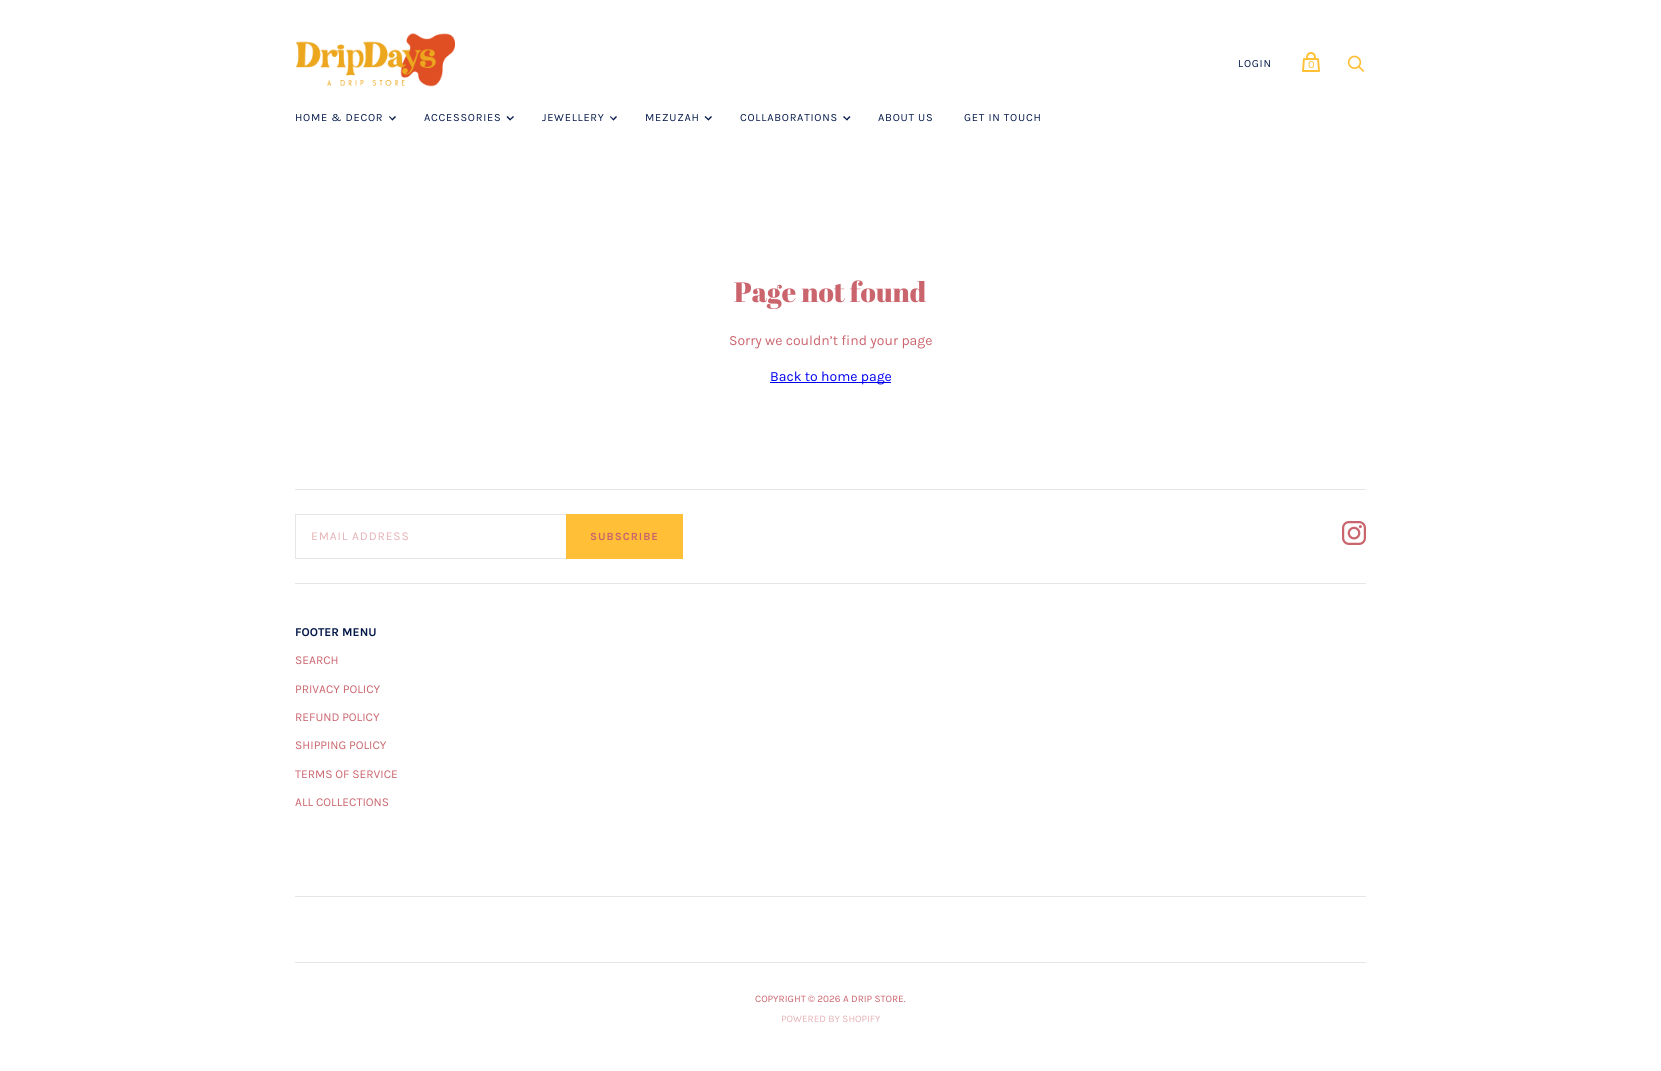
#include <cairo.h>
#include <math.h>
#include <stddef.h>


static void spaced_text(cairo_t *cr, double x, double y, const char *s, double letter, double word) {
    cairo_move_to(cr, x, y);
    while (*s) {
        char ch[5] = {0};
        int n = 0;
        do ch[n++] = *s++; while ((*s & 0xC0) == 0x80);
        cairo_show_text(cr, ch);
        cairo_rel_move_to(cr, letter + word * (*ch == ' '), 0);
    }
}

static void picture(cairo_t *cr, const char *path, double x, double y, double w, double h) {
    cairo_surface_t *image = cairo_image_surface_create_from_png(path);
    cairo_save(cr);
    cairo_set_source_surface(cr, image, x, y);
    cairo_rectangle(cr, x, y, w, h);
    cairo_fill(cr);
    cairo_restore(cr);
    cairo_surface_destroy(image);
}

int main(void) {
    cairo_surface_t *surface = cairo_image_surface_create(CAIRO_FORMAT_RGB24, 1661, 1071);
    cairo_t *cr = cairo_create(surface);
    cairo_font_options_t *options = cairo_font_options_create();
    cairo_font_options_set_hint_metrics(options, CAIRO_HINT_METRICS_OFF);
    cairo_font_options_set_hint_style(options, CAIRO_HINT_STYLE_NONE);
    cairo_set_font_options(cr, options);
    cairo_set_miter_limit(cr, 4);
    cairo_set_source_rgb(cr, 1, 1, 1);
    cairo_paint(cr);
    picture(cr, "img1.png", 295, 33, 160, 54);
    cairo_select_font_face(cr, "Karla", CAIRO_FONT_SLANT_NORMAL, CAIRO_FONT_WEIGHT_NORMAL);
    cairo_set_font_size(cr, 11);
    cairo_set_source_rgb(cr, 0.02, 0.098, 0.286);
    spaced_text(cr, 1238, 67, "LOGIN", 0.75, 0);
    picture(cr, "img2.png", 1302, 52, 18, 20);
    cairo_set_source_rgb(cr, 1, 0.749, 0.212);
    cairo_move_to(cr, 1308, 68);
    cairo_show_text(cr, "0");
    picture(cr, "img3.png", 1347, 55, 18, 17);
    cairo_set_source_rgb(cr, 0.02, 0.098, 0.286);
    spaced_text(cr, 295, 121, "HOME & DECOR", 0.75, 0);
    cairo_new_path(cr);
    cairo_move_to(cr, 391.5, 119.5);
    cairo_line_to(cr, 395, 116);
    cairo_line_to(cr, 396, 117);
    cairo_line_to(cr, 392.5, 120.5);
    cairo_close_path(cr);
    cairo_fill(cr);
    cairo_new_path(cr);
    cairo_move_to(cr, 389, 117);
    cairo_line_to(cr, 389.5, 116);
    cairo_line_to(cr, 393, 119.5);
    cairo_line_to(cr, 392.5, 120.5);
    cairo_close_path(cr);
    cairo_fill(cr);
    spaced_text(cr, 424, 121, "ACCESSORIES", 0.75, 0);
    cairo_new_path(cr);
    cairo_move_to(cr, 509.5, 119.5);
    cairo_line_to(cr, 513, 116);
    cairo_line_to(cr, 514, 117);
    cairo_line_to(cr, 510, 120.5);
    cairo_close_path(cr);
    cairo_fill(cr);
    cairo_new_path(cr);
    cairo_move_to(cr, 506.5, 117);
    cairo_line_to(cr, 507.5, 116);
    cairo_line_to(cr, 511, 119.5);
    cairo_line_to(cr, 510, 120.5);
    cairo_close_path(cr);
    cairo_fill(cr);
    spaced_text(cr, 542, 121, "JEWELLERY", 0.75, 0);
    cairo_new_path(cr);
    cairo_move_to(cr, 612.5, 119.5);
    cairo_line_to(cr, 616, 116);
    cairo_line_to(cr, 617, 117);
    cairo_line_to(cr, 613.5, 120.5);
    cairo_close_path(cr);
    cairo_fill(cr);
    cairo_new_path(cr);
    cairo_move_to(cr, 610, 117);
    cairo_line_to(cr, 610.5, 116);
    cairo_line_to(cr, 614, 119.5);
    cairo_line_to(cr, 613.5, 120.5);
    cairo_close_path(cr);
    cairo_fill(cr);
    spaced_text(cr, 645, 121, "MEZUZAH", 0.75, 0);
    cairo_new_path(cr);
    cairo_move_to(cr, 707.5, 119.5);
    cairo_line_to(cr, 711, 116);
    cairo_line_to(cr, 712, 117);
    cairo_line_to(cr, 708.5, 120.5);
    cairo_close_path(cr);
    cairo_fill(cr);
    cairo_new_path(cr);
    cairo_move_to(cr, 704.5, 117);
    cairo_line_to(cr, 705.5, 116);
    cairo_line_to(cr, 709, 119.5);
    cairo_line_to(cr, 708.5, 120.5);
    cairo_close_path(cr);
    cairo_fill(cr);
    spaced_text(cr, 740, 121, "COLLABORATIONS", 0.75, 0);
    cairo_new_path(cr);
    cairo_move_to(cr, 846, 119.5);
    cairo_line_to(cr, 849.5, 116);
    cairo_line_to(cr, 850.5, 117);
    cairo_line_to(cr, 847, 120.5);
    cairo_close_path(cr);
    cairo_fill(cr);
    cairo_new_path(cr);
    cairo_move_to(cr, 843, 117);
    cairo_line_to(cr, 844, 116);
    cairo_line_to(cr, 847.5, 119.5);
    cairo_line_to(cr, 847, 120.5);
    cairo_close_path(cr);
    cairo_fill(cr);
    spaced_text(cr, 878, 121, "ABOUT US", 0.75, 0);
    spaced_text(cr, 964, 121, "GET IN TOUCH", 0.75, 0);
    cairo_select_font_face(cr, "Abril Fatface", CAIRO_FONT_SLANT_NORMAL, CAIRO_FONT_WEIGHT_NORMAL);
    cairo_set_font_size(cr, 28);
    cairo_set_source_rgb(cr, 0.792, 0.392, 0.427);
    cairo_move_to(cr, 734, 302);
    cairo_show_text(cr, "Page not found");
    cairo_select_font_face(cr, "Karla", CAIRO_FONT_SLANT_NORMAL, CAIRO_FONT_WEIGHT_NORMAL);
    cairo_set_font_size(cr, 14);
    cairo_move_to(cr, 729, 345);
    cairo_show_text(cr, "Sorry we couldn’t find your page");
    cairo_set_source_rgb(cr, 0, 0, 0.933);
    cairo_rectangle(cr, 770, 382, 121, 1);
    cairo_fill(cr);
    cairo_move_to(cr, 770, 381);
    cairo_show_text(cr, "Back to home page");
    cairo_set_source_rgb(cr, 0.902, 0.902, 0.902);
    cairo_rectangle(cr, 295, 489, 1071, 1);
    cairo_fill(cr);
    cairo_rectangle(cr, 295, 514, 271, 1);
    cairo_fill(cr);
    cairo_rectangle(cr, 295, 558, 271, 1);
    cairo_fill(cr);
    cairo_rectangle(cr, 295, 514, 1, 45);
    cairo_fill(cr);
    cairo_set_font_size(cr, 12);
    cairo_set_source_rgb(cr, 0.898, 0.698, 0.714);
    spaced_text(cr, 311, 540, "EMAIL ADDRESS", 0.9, 0);
    cairo_set_source_rgb(cr, 1, 0.749, 0.212);
    cairo_rectangle(cr, 566, 514, 117, 45);
    cairo_fill(cr);
    cairo_select_font_face(cr, "Karla", CAIRO_FONT_SLANT_NORMAL, CAIRO_FONT_WEIGHT_BOLD);
    cairo_set_font_size(cr, 11);
    cairo_set_source_rgb(cr, 0.792, 0.392, 0.427);
    spaced_text(cr, 590, 540, "SUBSCRIBE", 1, 0);
    picture(cr, "img4.png", 1342, 521, 24, 24);
    cairo_set_source_rgb(cr, 0.902, 0.902, 0.902);
    cairo_rectangle(cr, 295, 583, 1071, 1);
    cairo_fill(cr);
    cairo_set_font_size(cr, 12);
    cairo_set_source_rgb(cr, 0.02, 0.098, 0.286);
    cairo_move_to(cr, 295, 636);
    cairo_show_text(cr, "FOOTER MENU");
    cairo_select_font_face(cr, "Karla", CAIRO_FONT_SLANT_NORMAL, CAIRO_FONT_WEIGHT_NORMAL);
    cairo_set_source_rgb(cr, 0.792, 0.392, 0.427);
    cairo_move_to(cr, 295, 664);
    cairo_show_text(cr, "SEARCH");
    cairo_move_to(cr, 295, 693);
    cairo_show_text(cr, "PRIVACY POLICY");
    cairo_move_to(cr, 295, 721);
    cairo_show_text(cr, "REFUND POLICY");
    cairo_move_to(cr, 295, 749);
    cairo_show_text(cr, "SHIPPING POLICY");
    cairo_move_to(cr, 295, 778);
    cairo_show_text(cr, "TERMS OF SERVICE");
    cairo_move_to(cr, 295, 806);
    cairo_show_text(cr, "ALL COLLECTIONS");
    cairo_set_source_rgb(cr, 0.902, 0.902, 0.902);
    cairo_rectangle(cr, 295, 896, 1071, 1);
    cairo_fill(cr);
    cairo_rectangle(cr, 295, 962, 1071, 1);
    cairo_fill(cr);
    cairo_set_font_size(cr, 10);
    cairo_set_source_rgb(cr, 0.792, 0.392, 0.427);
    cairo_move_to(cr, 755, 1002);
    cairo_show_text(cr, "COPYRIGHT © 2026 A DRIP STORE.");
    cairo_set_source_rgb(cr, 0.898, 0.698, 0.714);
    cairo_move_to(cr, 781, 1022);
    cairo_show_text(cr, "POWERED BY SHOPIFY");
    cairo_surface_write_to_png(surface, "page.png");
    cairo_font_options_destroy(options);
    cairo_destroy(cr);
    cairo_surface_destroy(surface);
    return 0;
}
